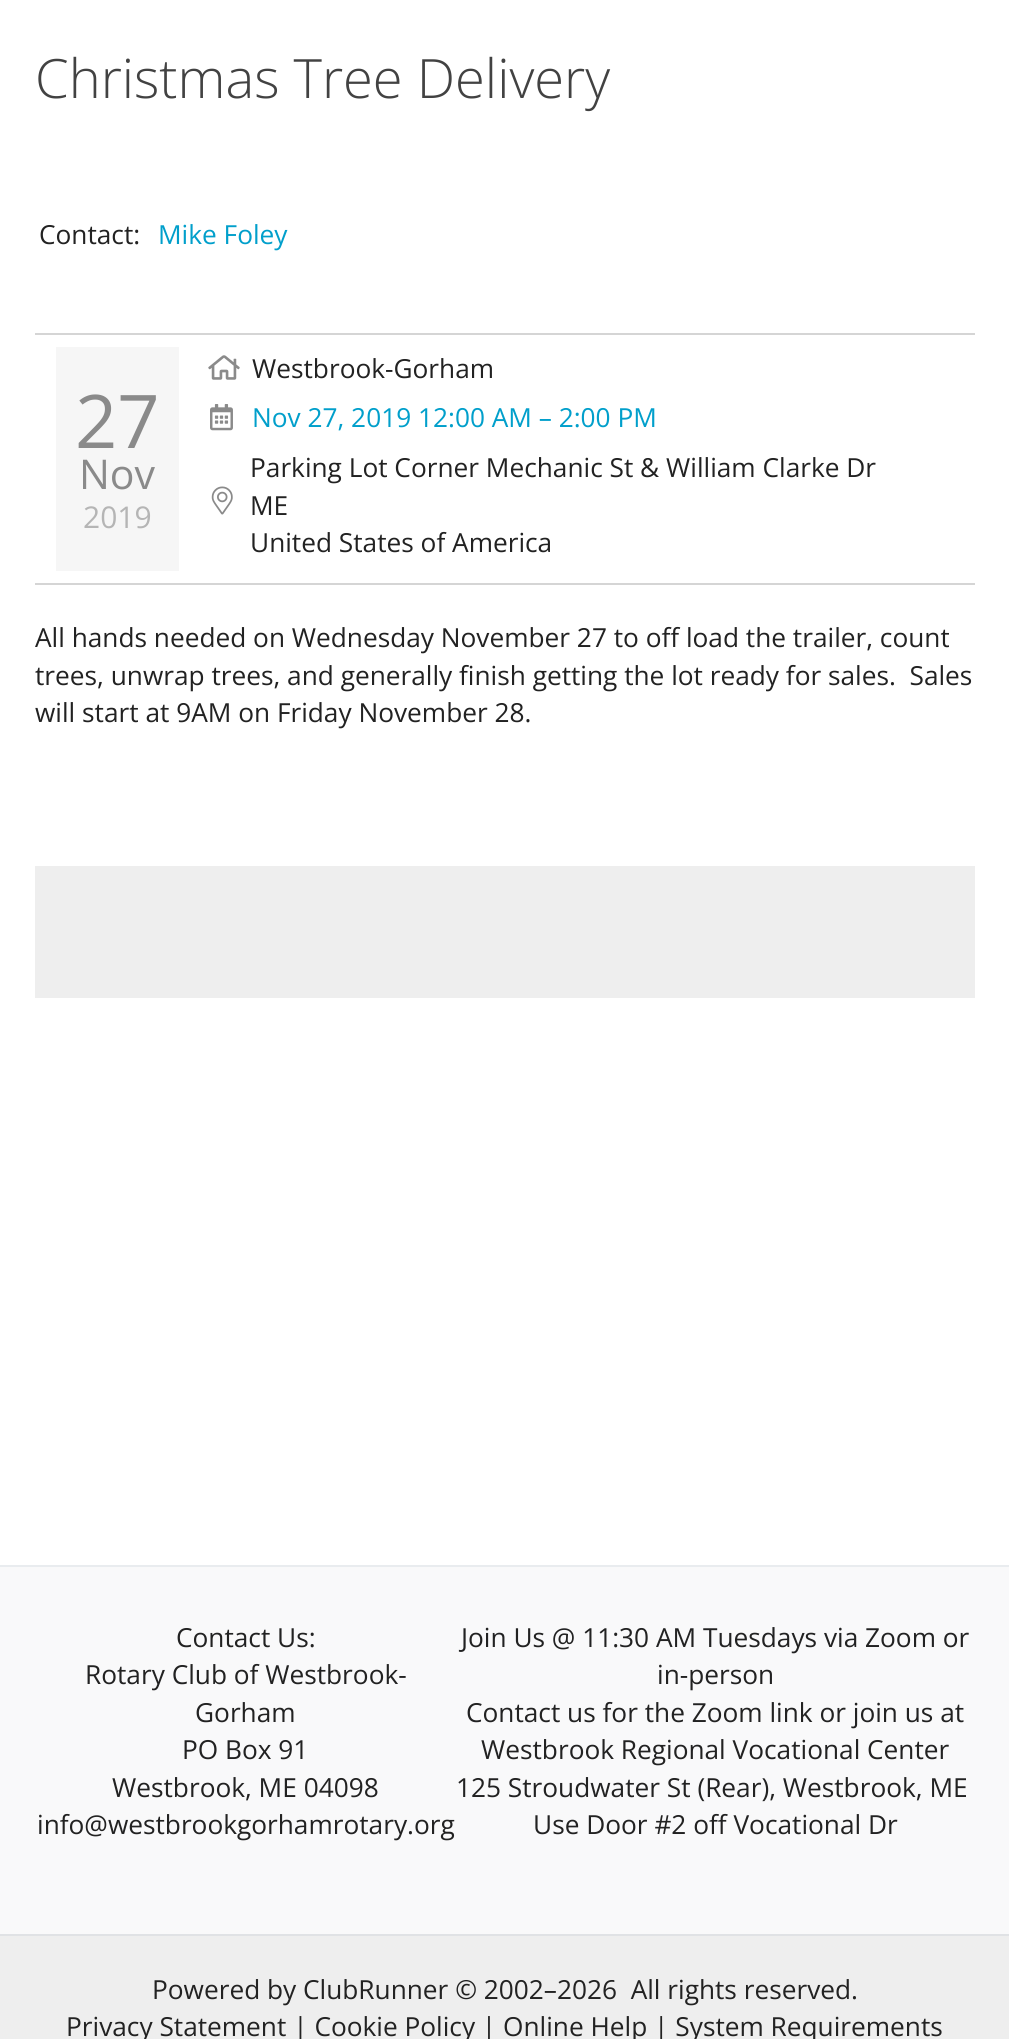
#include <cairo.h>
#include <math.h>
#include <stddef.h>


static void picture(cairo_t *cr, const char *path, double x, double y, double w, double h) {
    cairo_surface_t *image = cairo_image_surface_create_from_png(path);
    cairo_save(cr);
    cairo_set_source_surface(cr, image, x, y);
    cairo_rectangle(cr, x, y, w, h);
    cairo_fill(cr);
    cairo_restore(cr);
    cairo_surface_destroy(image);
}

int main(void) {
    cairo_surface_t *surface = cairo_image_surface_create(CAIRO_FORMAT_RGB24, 1009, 2039);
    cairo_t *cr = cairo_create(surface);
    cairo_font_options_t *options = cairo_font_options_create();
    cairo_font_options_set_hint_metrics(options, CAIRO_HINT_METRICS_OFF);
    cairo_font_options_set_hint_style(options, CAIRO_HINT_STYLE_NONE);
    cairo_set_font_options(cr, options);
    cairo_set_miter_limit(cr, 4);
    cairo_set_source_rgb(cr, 1, 1, 1);
    cairo_paint(cr);
    cairo_select_font_face(cr, "Open Sans Light", CAIRO_FONT_SLANT_NORMAL, CAIRO_FONT_WEIGHT_NORMAL);
    cairo_set_font_size(cr, 54.25);
    cairo_set_source_rgb(cr, 0.259, 0.259, 0.259);
    cairo_move_to(cr, 35, 98);
    cairo_show_text(cr, "Christmas Tree Delivery");
    cairo_select_font_face(cr, "Open Sans", CAIRO_FONT_SLANT_NORMAL, CAIRO_FONT_WEIGHT_NORMAL);
    cairo_set_font_size(cr, 26.25);
    cairo_set_source_rgb(cr, 0.133, 0.133, 0.133);
    cairo_move_to(cr, 39, 244);
    cairo_show_text(cr, "Contact:");
    cairo_set_source_rgb(cr, 0.004, 0.624, 0.796);
    cairo_move_to(cr, 158, 244);
    cairo_show_text(cr, "Mike Foley");
    cairo_set_source_rgb(cr, 0.835, 0.835, 0.835);
    cairo_rectangle(cr, 35, 333, 940, 2);
    cairo_fill(cr);
    cairo_rectangle(cr, 35, 583, 940, 2);
    cairo_fill(cr);
    picture(cr, "img1.png", 208, 355, 32, 25);
    cairo_set_source_rgb(cr, 0.133, 0.133, 0.133);
    cairo_move_to(cr, 252, 378);
    cairo_show_text(cr, "Westbrook-Gorham");
    cairo_set_source_rgb(cr, 0.961, 0.961, 0.961);
    cairo_rectangle(cr, 56, 347, 123, 224);
    cairo_fill(cr);
    cairo_set_font_size(cr, 74);
    cairo_set_source_rgb(cr, 0.541, 0.541, 0.541);
    cairo_move_to(cr, 75, 448);
    cairo_show_text(cr, "27");
    cairo_set_font_size(cr, 41);
    cairo_move_to(cr, 79, 489);
    cairo_show_text(cr, "Nov");
    cairo_set_font_size(cr, 30);
    cairo_set_source_rgb(cr, 0.71, 0.71, 0.71);
    cairo_move_to(cr, 83, 528);
    cairo_show_text(cr, "2019");
    picture(cr, "img2.png", 210, 404, 23, 27);
    cairo_set_font_size(cr, 26.25);
    cairo_set_source_rgb(cr, 0.004, 0.624, 0.796);
    cairo_move_to(cr, 252, 427);
    cairo_show_text(cr, "Nov 27, 2019 12:00 AM – 2:00 PM");
    picture(cr, "img3.png", 211, 486, 22, 29);
    cairo_set_source_rgb(cr, 0.133, 0.133, 0.133);
    cairo_move_to(cr, 250, 477);
    cairo_show_text(cr, "Parking Lot Corner Mechanic St & William Clarke Dr");
    cairo_move_to(cr, 250, 515);
    cairo_show_text(cr, "ME");
    cairo_move_to(cr, 250, 552);
    cairo_show_text(cr, "United States of America");
    cairo_move_to(cr, 35, 647);
    cairo_show_text(cr, "All hands needed on Wednesday November 27 to off load the trailer, count");
    cairo_move_to(cr, 35, 685);
    cairo_show_text(cr, "trees, unwrap trees, and generally finish getting the lot ready for sales.  Sales");
    cairo_move_to(cr, 35, 722);
    cairo_show_text(cr, "will start at 9AM on Friday November 28.");
    cairo_set_source_rgb(cr, 0.933, 0.933, 0.933);
    cairo_rectangle(cr, 35, 866, 940, 132);
    cairo_fill(cr);
    cairo_rectangle(cr, 0, 1936, 1009, 103);
    cairo_fill(cr);
    cairo_set_source_rgb(cr, 0.973, 0.976, 0.98);
    cairo_rectangle(cr, 0, 1567, 1009, 367);
    cairo_fill(cr);
    cairo_set_source_rgb(cr, 0.914, 0.925, 0.937);
    cairo_rectangle(cr, 0, 1565, 1009, 2);
    cairo_fill(cr);
    cairo_set_source_rgb(cr, 0.878, 0.886, 0.898);
    cairo_rectangle(cr, 0, 1934, 1009, 2);
    cairo_fill(cr);
    cairo_set_source_rgb(cr, 0.133, 0.133, 0.133);
    cairo_move_to(cr, 176, 1647);
    cairo_show_text(cr, "Contact Us:");
    cairo_move_to(cr, 85, 1684);
    cairo_show_text(cr, "Rotary Club of Westbrook-");
    cairo_move_to(cr, 195, 1722);
    cairo_show_text(cr, "Gorham");
    cairo_move_to(cr, 182, 1759);
    cairo_show_text(cr, "PO Box 91");
    cairo_move_to(cr, 112, 1797);
    cairo_show_text(cr, "Westbrook, ME 04098");
    cairo_move_to(cr, 37, 1834);
    cairo_show_text(cr, "info@westbrookgorhamrotary.org");
    cairo_move_to(cr, 461, 1647);
    cairo_show_text(cr, "Join Us @ 11:30 AM Tuesdays via Zoom or");
    cairo_move_to(cr, 657, 1684);
    cairo_show_text(cr, "in-person");
    cairo_move_to(cr, 466, 1722);
    cairo_show_text(cr, "Contact us for the Zoom link or join us at");
    cairo_move_to(cr, 481, 1759);
    cairo_show_text(cr, "Westbrook Regional Vocational Center");
    cairo_move_to(cr, 456, 1797);
    cairo_show_text(cr, "125 Stroudwater St (Rear), Westbrook, ME");
    cairo_move_to(cr, 533, 1834);
    cairo_show_text(cr, "Use Door #2 off Vocational Dr");
    cairo_move_to(cr, 152, 1999);
    cairo_show_text(cr, "Powered by ClubRunner © 2002–2026  All rights reserved.");
    cairo_move_to(cr, 66, 2036);
    cairo_show_text(cr, "Privacy Statement | Cookie Policy | Online Help | System Requirements");
    cairo_surface_write_to_png(surface, "page.png");
    cairo_font_options_destroy(options);
    cairo_destroy(cr);
    cairo_surface_destroy(surface);
    return 0;
}
